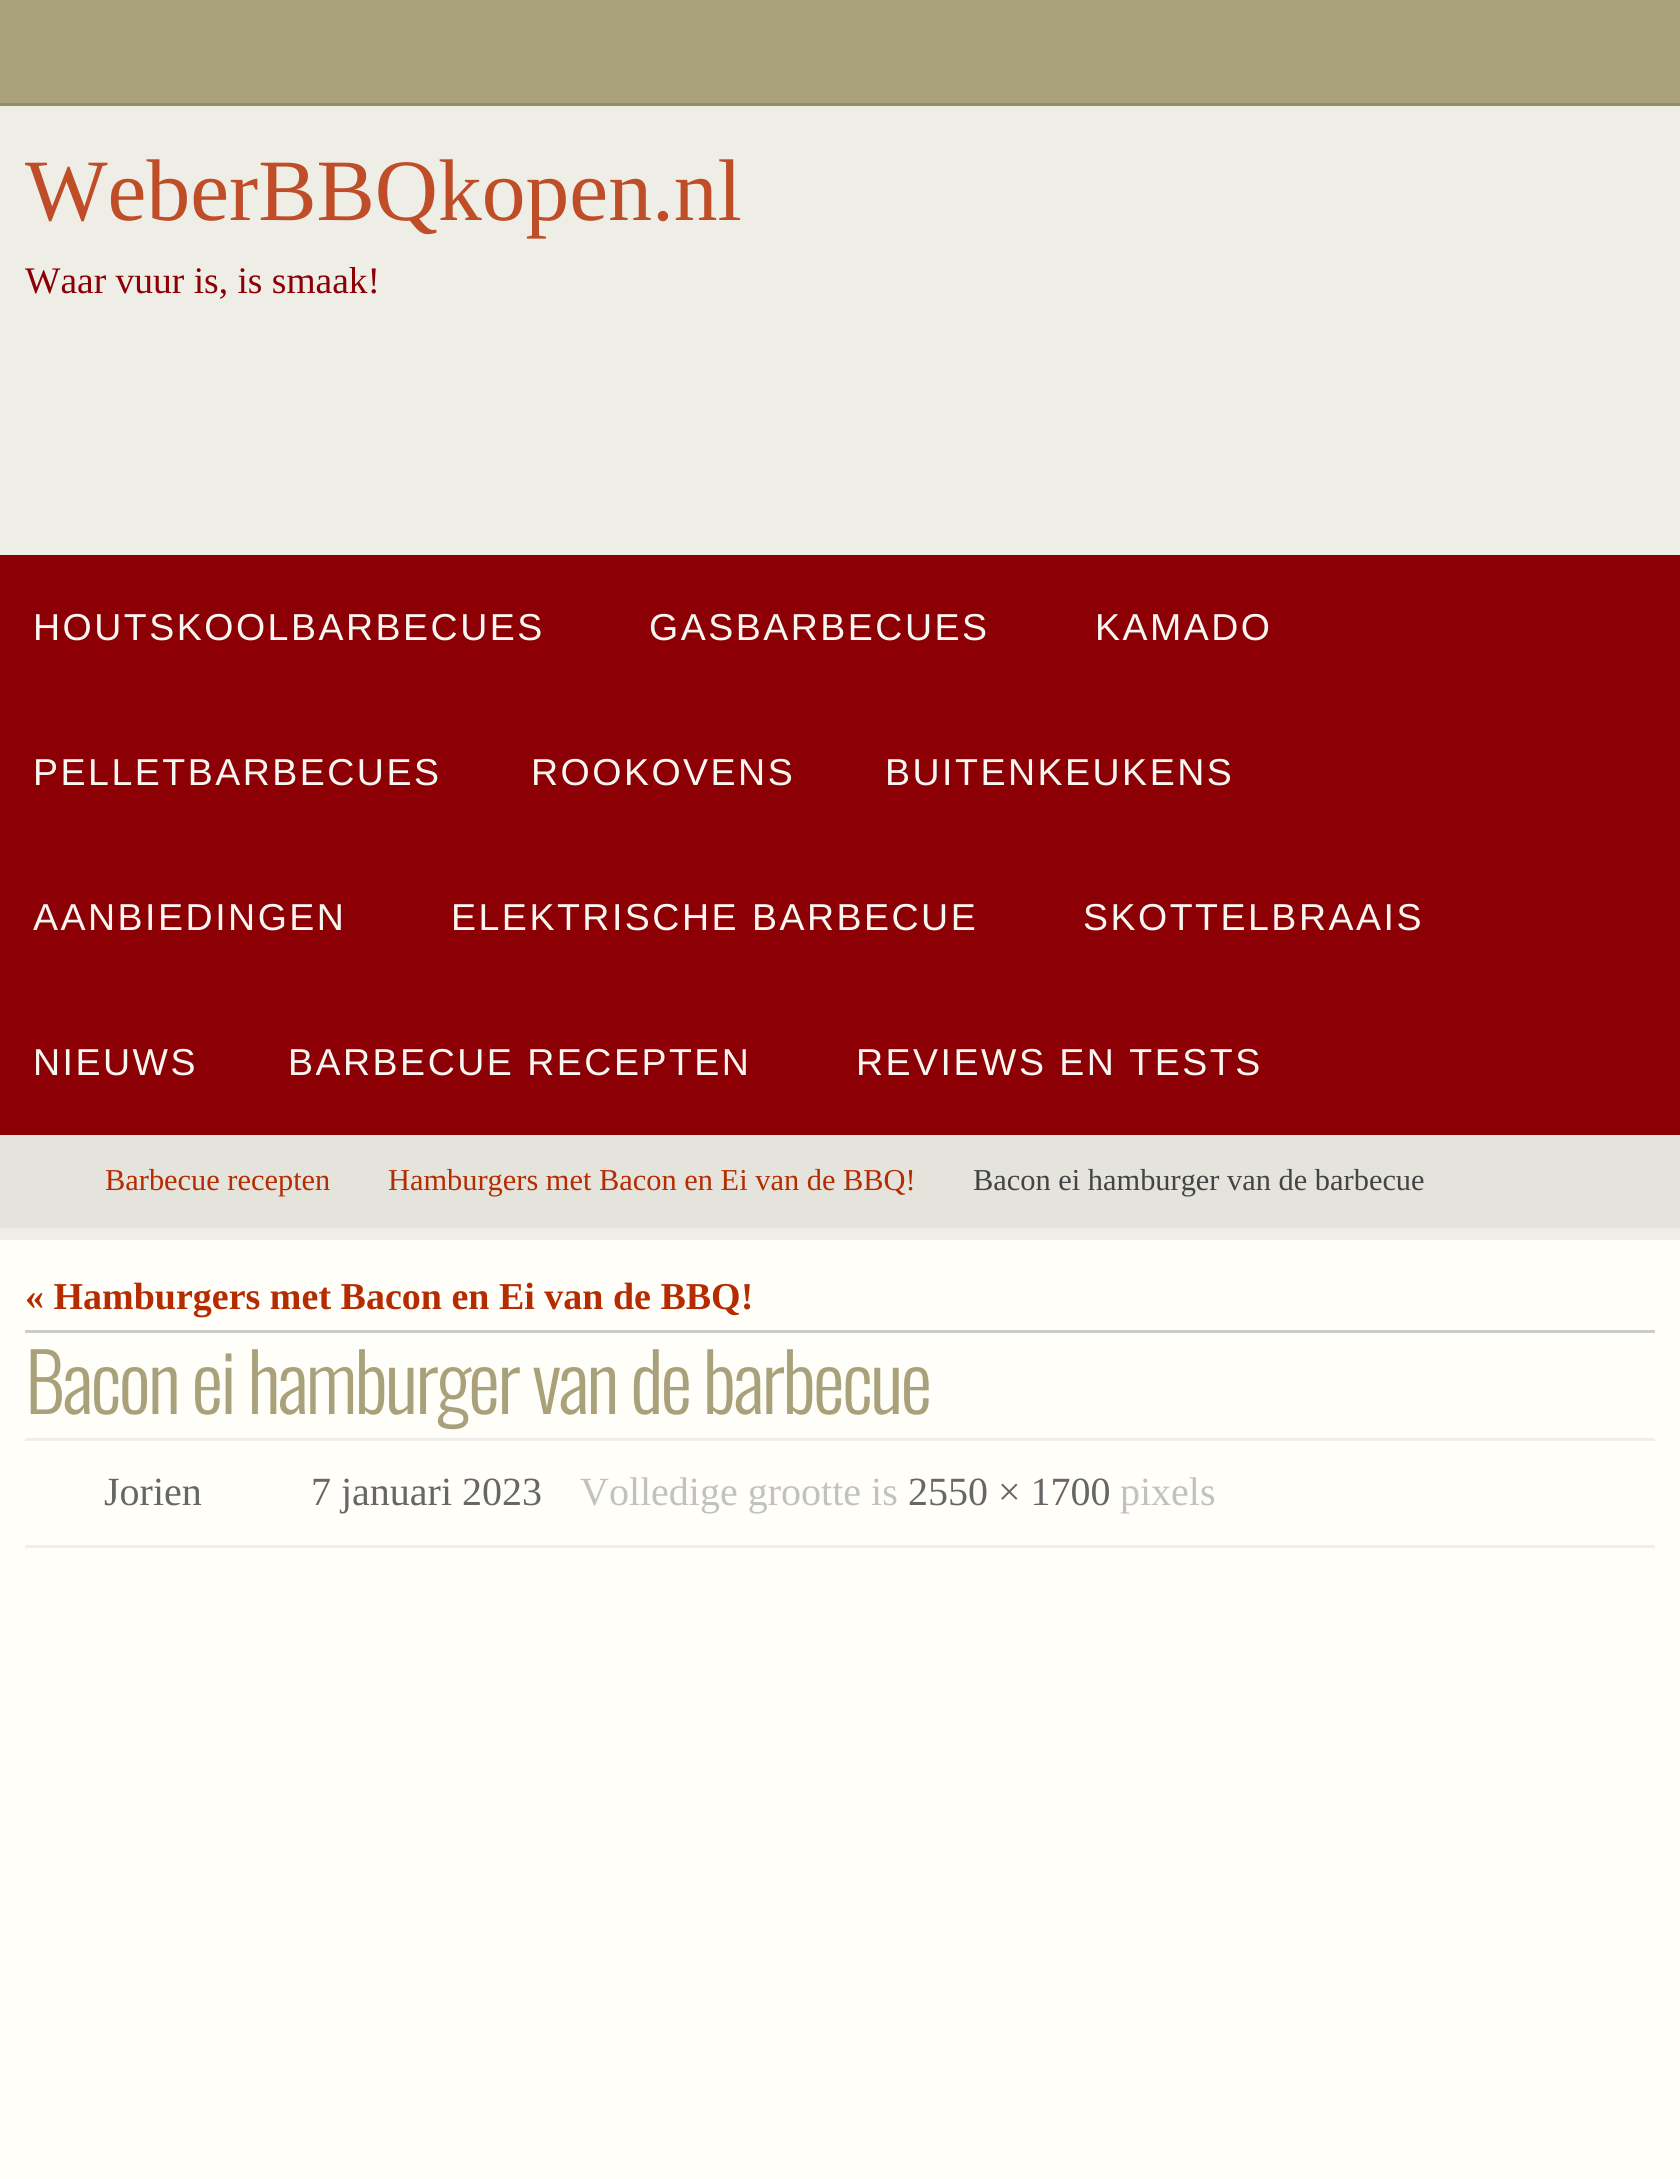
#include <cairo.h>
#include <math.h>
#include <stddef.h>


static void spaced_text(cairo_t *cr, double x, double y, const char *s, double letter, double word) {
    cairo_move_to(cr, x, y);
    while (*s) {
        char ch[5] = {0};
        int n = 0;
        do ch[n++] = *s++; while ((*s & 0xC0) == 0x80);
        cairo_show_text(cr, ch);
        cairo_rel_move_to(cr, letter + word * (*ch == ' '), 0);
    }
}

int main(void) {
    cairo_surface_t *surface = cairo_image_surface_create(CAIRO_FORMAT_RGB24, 1680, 2179);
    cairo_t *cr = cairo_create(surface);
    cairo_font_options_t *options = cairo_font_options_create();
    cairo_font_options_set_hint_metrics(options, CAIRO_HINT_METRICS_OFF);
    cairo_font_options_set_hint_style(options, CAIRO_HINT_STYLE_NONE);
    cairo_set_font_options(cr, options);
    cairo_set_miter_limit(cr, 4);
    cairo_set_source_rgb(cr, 0.933, 0.929, 0.902);
    cairo_paint(cr);
    cairo_set_source_rgb(cr, 0.663, 0.631, 0.478);
    cairo_rectangle(cr, 0, 0, 1680, 103);
    cairo_fill(cr);
    cairo_set_source_rgb(cr, 0.584, 0.553, 0.4);
    cairo_rectangle(cr, 0, 103, 1680, 3);
    cairo_fill(cr);
    cairo_select_font_face(cr, "Liberation Serif", CAIRO_FONT_SLANT_NORMAL, CAIRO_FONT_WEIGHT_NORMAL);
    cairo_set_font_size(cr, 87.5);
    cairo_set_source_rgb(cr, 0.749, 0.302, 0.157);
    cairo_move_to(cr, 25, 220);
    cairo_show_text(cr, "WeberBBQkopen.nl");
    cairo_set_font_size(cr, 37.5);
    cairo_set_source_rgb(cr, 0.549, 0, 0.02);
    cairo_move_to(cr, 25, 293);
    cairo_show_text(cr, "Waar vuur is, is smaak!");
    cairo_rectangle(cr, 0, 555, 1680, 580);
    cairo_fill(cr);
    cairo_select_font_face(cr, "Liberation Sans", CAIRO_FONT_SLANT_NORMAL, CAIRO_FONT_WEIGHT_NORMAL);
    cairo_set_source_rgb(cr, 0.965, 0.961, 0.945);
    spaced_text(cr, 33, 640, "HOUTSKOOLBARBECUES", 2.5, 0);
    spaced_text(cr, 649, 640, "GASBARBECUES", 2.5, 0);
    spaced_text(cr, 1095, 640, "KAMADO", 2.5, 0);
    spaced_text(cr, 33, 785, "PELLETBARBECUES", 2.5, 0);
    spaced_text(cr, 531, 785, "ROOKOVENS", 2.5, 0);
    spaced_text(cr, 885, 785, "BUITENKEUKENS", 2.5, 0);
    spaced_text(cr, 33, 930, "AANBIEDINGEN", 2.5, 0);
    spaced_text(cr, 451, 930, "ELEKTRISCHE BARBECUE", 2.5, 0);
    spaced_text(cr, 1083, 930, "SKOTTELBRAAIS", 2.5, 0);
    spaced_text(cr, 33, 1075, "NIEUWS", 2.5, 0);
    spaced_text(cr, 288, 1075, "BARBECUE RECEPTEN", 2.5, 0);
    spaced_text(cr, 856, 1075, "REVIEWS EN TESTS", 2.5, 0);
    cairo_set_source_rgb(cr, 0.894, 0.89, 0.863);
    cairo_rectangle(cr, 0, 1135, 1680, 93);
    cairo_fill(cr);
    cairo_select_font_face(cr, "Liberation Serif", CAIRO_FONT_SLANT_NORMAL, CAIRO_FONT_WEIGHT_NORMAL);
    cairo_set_font_size(cr, 30.4);
    cairo_set_source_rgb(cr, 0.71, 0.173, 0);
    cairo_move_to(cr, 105, 1190);
    cairo_show_text(cr, "Barbecue recepten");
    cairo_move_to(cr, 388, 1190);
    cairo_show_text(cr, "Hamburgers met Bacon en Ei van de BBQ!");
    cairo_set_source_rgb(cr, 0.267, 0.267, 0.267);
    cairo_move_to(cr, 973, 1190);
    cairo_show_text(cr, "Bacon ei hamburger van de barbecue");
    cairo_set_source_rgb(cr, 1, 0.996, 0.976);
    cairo_rectangle(cr, 0, 1240, 1680, 939);
    cairo_fill(cr);
    cairo_set_source_rgb(cr, 0.8, 0.8, 0.8);
    cairo_rectangle(cr, 25, 1330, 1630, 3);
    cairo_fill(cr);
    cairo_select_font_face(cr, "Liberation Serif", CAIRO_FONT_SLANT_NORMAL, CAIRO_FONT_WEIGHT_BOLD);
    cairo_set_font_size(cr, 38);
    cairo_set_source_rgb(cr, 0.71, 0.173, 0);
    cairo_move_to(cr, 25, 1309);
    cairo_show_text(cr, "« Hamburgers met Bacon en Ei van de BBQ!");
    cairo_select_font_face(cr, "Oswald Light", CAIRO_FONT_SLANT_NORMAL, CAIRO_FONT_WEIGHT_NORMAL);
    cairo_set_font_size(cr, 80);
    cairo_set_source_rgb(cr, 0.663, 0.631, 0.478);
    spaced_text(cr, 25, 1414, "Bacon ei hamburger van de barbecue", -2.75, 0);
    cairo_set_source_rgb(cr, 0.933, 0.933, 0.933);
    cairo_rectangle(cr, 25, 1438, 1630, 3);
    cairo_fill(cr);
    cairo_rectangle(cr, 25, 1545, 1630, 3);
    cairo_fill(cr);
    cairo_select_font_face(cr, "Liberation Serif", CAIRO_FONT_SLANT_NORMAL, CAIRO_FONT_WEIGHT_NORMAL);
    cairo_set_font_size(cr, 40);
    cairo_set_source_rgb(cr, 0.4, 0.4, 0.4);
    cairo_move_to(cr, 104, 1505);
    cairo_show_text(cr, "Jorien");
    cairo_move_to(cr, 311, 1505);
    cairo_show_text(cr, "7 januari 2023");
    cairo_set_source_rgb(cr, 0.757, 0.757, 0.757);
    cairo_move_to(cr, 580, 1505);
    cairo_show_text(cr, "Volledige grootte is");
    cairo_set_source_rgb(cr, 0.4, 0.4, 0.4);
    cairo_move_to(cr, 908, 1505);
    cairo_show_text(cr, "2550 × 1700");
    cairo_set_source_rgb(cr, 0.757, 0.757, 0.757);
    cairo_move_to(cr, 1120, 1505);
    cairo_show_text(cr, "pixels");
    cairo_surface_write_to_png(surface, "page.png");
    cairo_font_options_destroy(options);
    cairo_destroy(cr);
    cairo_surface_destroy(surface);
    return 0;
}
